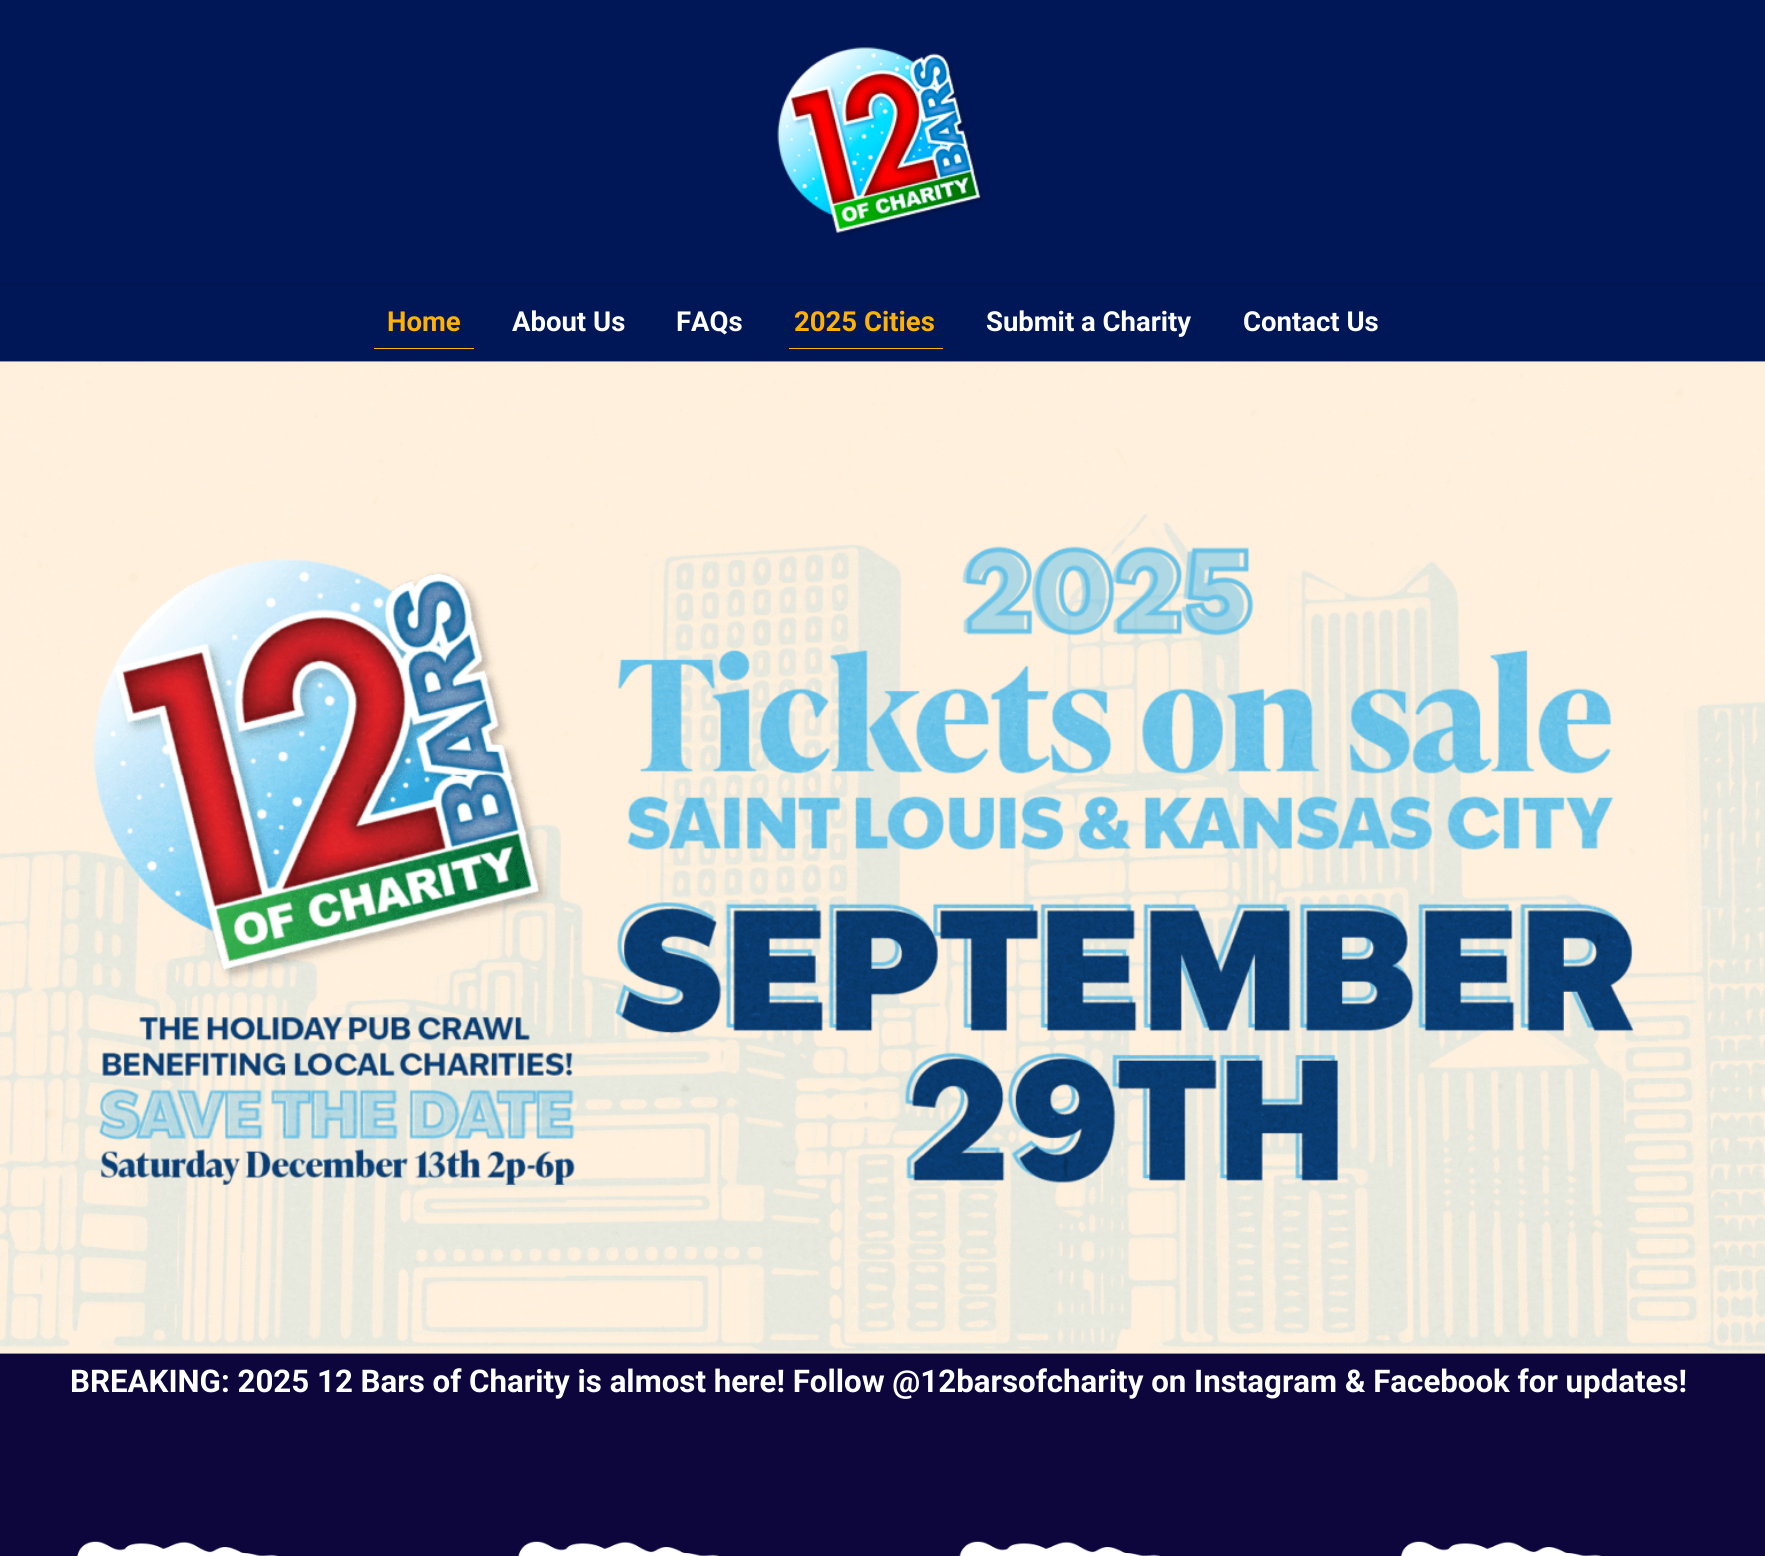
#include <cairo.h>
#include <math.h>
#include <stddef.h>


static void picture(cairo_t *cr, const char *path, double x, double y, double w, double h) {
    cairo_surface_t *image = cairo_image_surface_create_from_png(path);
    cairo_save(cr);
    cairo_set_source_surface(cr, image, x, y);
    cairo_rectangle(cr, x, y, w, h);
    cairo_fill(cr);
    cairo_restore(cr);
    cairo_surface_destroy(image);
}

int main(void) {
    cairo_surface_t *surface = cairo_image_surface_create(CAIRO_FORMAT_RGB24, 1765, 1556);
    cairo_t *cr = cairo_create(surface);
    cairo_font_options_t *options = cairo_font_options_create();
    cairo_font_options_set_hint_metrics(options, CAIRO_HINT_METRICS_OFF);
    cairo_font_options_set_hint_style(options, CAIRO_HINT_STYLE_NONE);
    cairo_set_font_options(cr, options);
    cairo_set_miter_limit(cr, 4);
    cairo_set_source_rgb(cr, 0.047, 0.024, 0.235);
    cairo_paint(cr);
    cairo_set_source_rgb(cr, 0, 0.09, 0.341);
    cairo_rectangle(cr, 0, 0, 1765, 1354);
    cairo_fill(cr);
    cairo_set_source_rgb(cr, 0, 0.082, 0.314);
    cairo_rectangle(cr, 0, 284, 1765, 1);
    cairo_fill(cr);
    picture(cr, "img1.png", 777, 47, 207, 189);
    cairo_set_source_rgb(cr, 0, 0.086, 0.325);
    cairo_rectangle(cr, 485, 285, 1, 75);
    cairo_fill(cr);
    cairo_select_font_face(cr, "Roboto", CAIRO_FONT_SLANT_NORMAL, CAIRO_FONT_WEIGHT_BOLD);
    cairo_set_font_size(cr, 27.5);
    cairo_set_source_rgb(cr, 1, 0.698, 0.016);
    cairo_move_to(cr, 387, 331);
    cairo_show_text(cr, "Home");
    cairo_rectangle(cr, 374, 348, 100, 1);
    cairo_fill(cr);
    cairo_set_source_rgb(cr, 0, 0.086, 0.325);
    cairo_rectangle(cr, 650, 285, 1, 75);
    cairo_fill(cr);
    cairo_set_source_rgb(cr, 1, 1, 1);
    cairo_move_to(cr, 512, 331);
    cairo_show_text(cr, "About Us");
    cairo_set_source_rgb(cr, 0, 0.086, 0.325);
    cairo_rectangle(cr, 768, 285, 1, 75);
    cairo_fill(cr);
    cairo_set_source_rgb(cr, 1, 1, 1);
    cairo_move_to(cr, 676, 331);
    cairo_show_text(cr, "FAQs");
    cairo_set_source_rgb(cr, 0, 0.086, 0.325);
    cairo_rectangle(cr, 960, 285, 1, 75);
    cairo_fill(cr);
    cairo_set_source_rgb(cr, 1, 0.698, 0.016);
    cairo_move_to(cr, 794, 331);
    cairo_show_text(cr, "2025 Cities");
    cairo_rectangle(cr, 789, 348, 154, 1);
    cairo_fill(cr);
    cairo_set_source_rgb(cr, 0, 0.086, 0.325);
    cairo_rectangle(cr, 1216, 285, 1, 75);
    cairo_fill(cr);
    cairo_set_source_rgb(cr, 1, 1, 1);
    cairo_move_to(cr, 986, 331);
    cairo_show_text(cr, "Submit a Charity");
    cairo_move_to(cr, 1243, 331);
    cairo_show_text(cr, "Contact Us");
    picture(cr, "img2.png", 0, 361, 1765, 993);
    cairo_set_font_size(cr, 31.25);
    cairo_move_to(cr, 70, 1392);
    cairo_show_text(cr, "BREAKING: 2025 12 Bars of Charity is almost here! Follow @12barsofcharity on Instagram & Facebook for updates!");
    picture(cr, "img3.png", 77, 1541, 201, 15);
    picture(cr, "img4.png", 518, 1541, 201, 15);
    picture(cr, "img5.png", 959, 1541, 201, 15);
    picture(cr, "img6.png", 1400, 1541, 202, 15);
    cairo_surface_write_to_png(surface, "page.png");
    cairo_font_options_destroy(options);
    cairo_destroy(cr);
    cairo_surface_destroy(surface);
    return 0;
}
